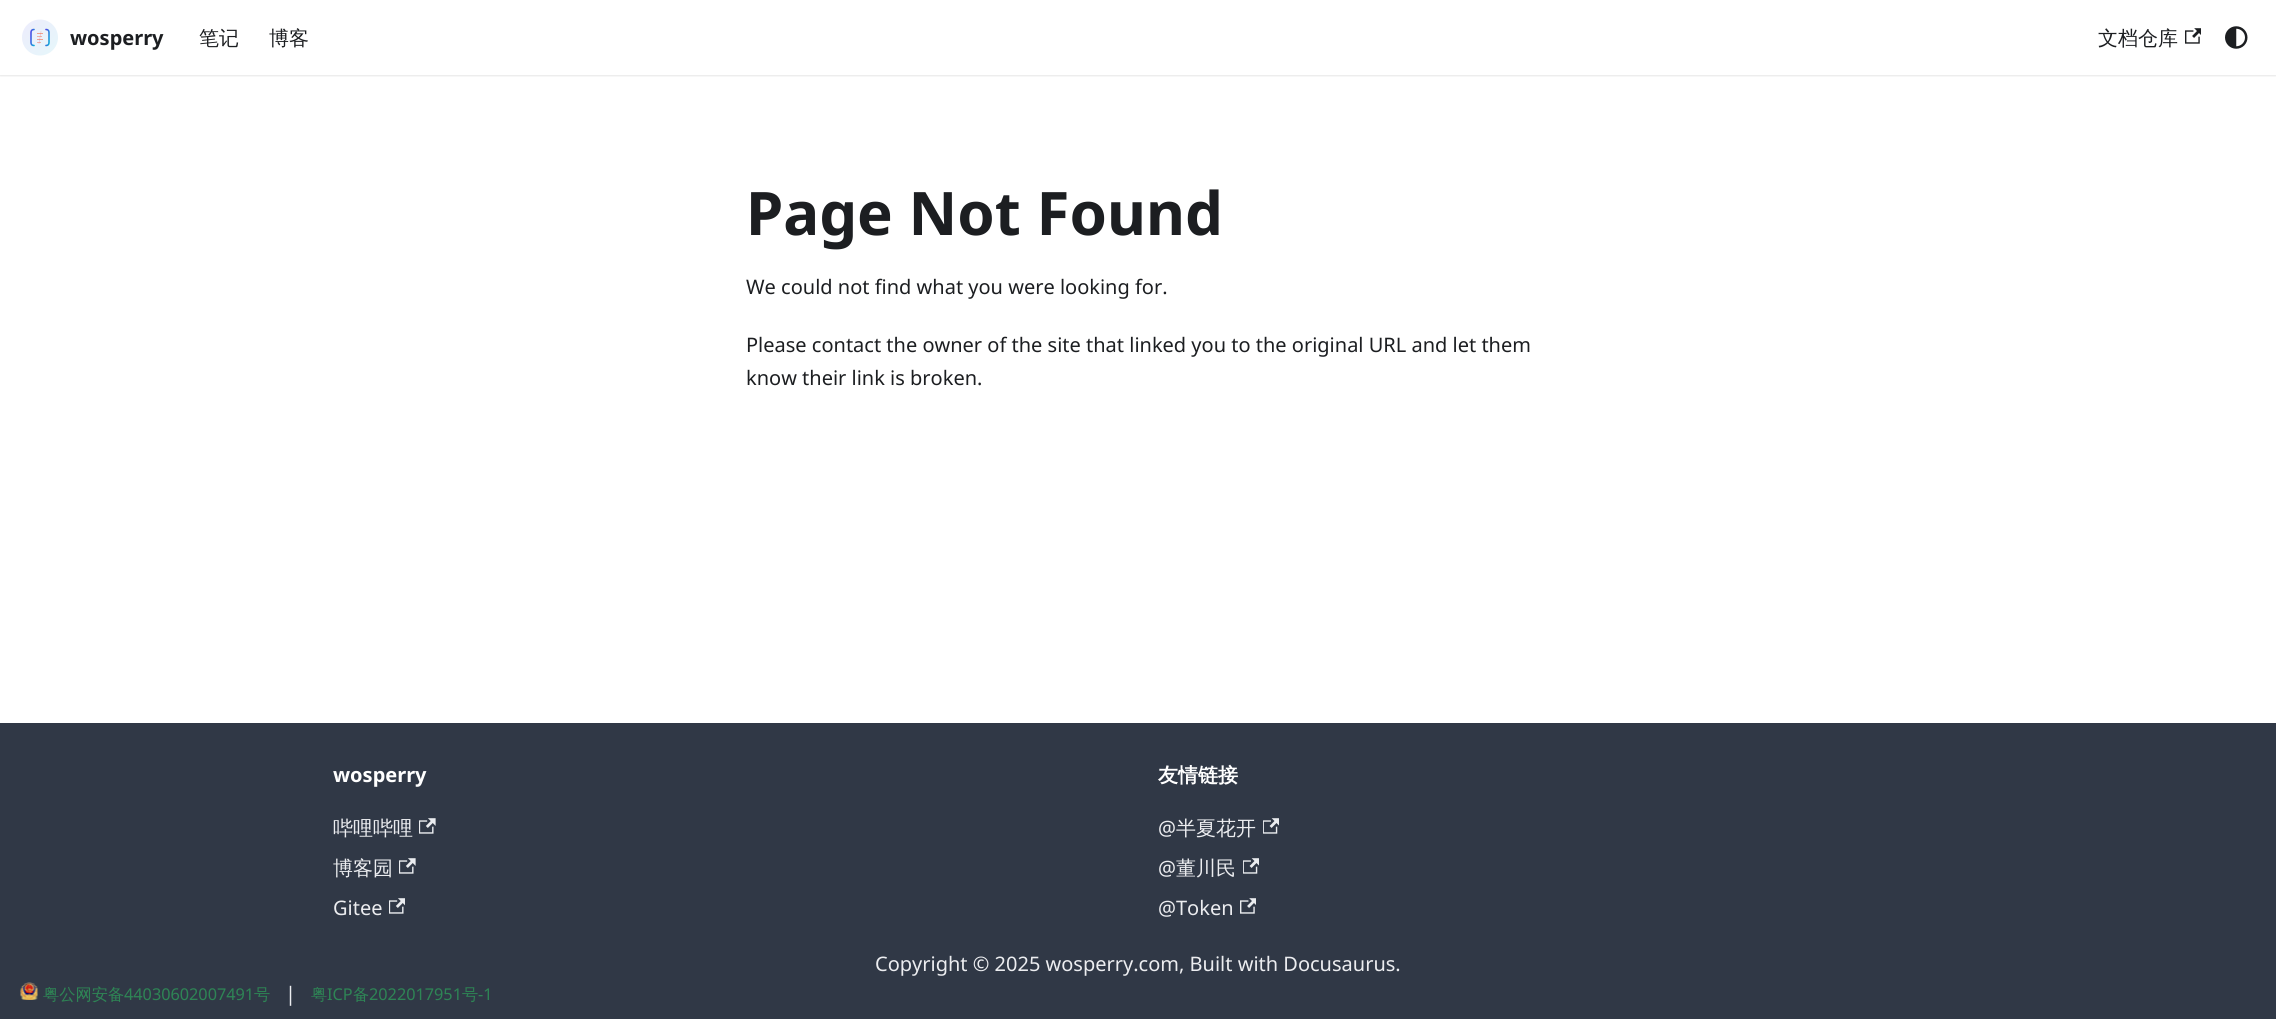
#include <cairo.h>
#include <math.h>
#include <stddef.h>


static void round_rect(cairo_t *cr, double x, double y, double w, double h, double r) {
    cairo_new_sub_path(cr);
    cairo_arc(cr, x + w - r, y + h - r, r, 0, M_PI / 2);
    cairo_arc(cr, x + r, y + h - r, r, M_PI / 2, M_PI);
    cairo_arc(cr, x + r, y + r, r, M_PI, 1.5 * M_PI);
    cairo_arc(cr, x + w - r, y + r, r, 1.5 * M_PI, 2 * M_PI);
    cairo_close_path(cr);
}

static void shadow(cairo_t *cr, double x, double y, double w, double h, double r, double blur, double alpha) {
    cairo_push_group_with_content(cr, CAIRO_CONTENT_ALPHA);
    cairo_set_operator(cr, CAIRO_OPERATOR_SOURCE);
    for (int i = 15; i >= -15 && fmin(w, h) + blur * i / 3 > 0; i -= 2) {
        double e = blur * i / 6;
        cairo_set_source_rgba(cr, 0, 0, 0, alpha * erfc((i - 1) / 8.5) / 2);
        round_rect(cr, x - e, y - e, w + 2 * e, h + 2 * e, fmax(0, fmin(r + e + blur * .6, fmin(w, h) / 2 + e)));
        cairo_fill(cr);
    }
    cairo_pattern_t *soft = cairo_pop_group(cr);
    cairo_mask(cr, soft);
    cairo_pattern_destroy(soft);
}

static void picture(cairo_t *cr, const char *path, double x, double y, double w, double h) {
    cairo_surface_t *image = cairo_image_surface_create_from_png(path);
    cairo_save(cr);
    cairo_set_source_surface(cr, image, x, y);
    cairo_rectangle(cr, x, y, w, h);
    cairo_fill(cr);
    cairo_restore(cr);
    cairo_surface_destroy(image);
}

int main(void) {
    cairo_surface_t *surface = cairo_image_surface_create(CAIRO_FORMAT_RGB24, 2276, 1019);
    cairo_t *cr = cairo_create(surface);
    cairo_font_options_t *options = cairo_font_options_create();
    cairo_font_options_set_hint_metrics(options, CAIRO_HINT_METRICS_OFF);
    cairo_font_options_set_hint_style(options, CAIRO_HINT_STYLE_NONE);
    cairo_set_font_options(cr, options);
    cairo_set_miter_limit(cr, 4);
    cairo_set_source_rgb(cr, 1, 1, 1);
    cairo_paint(cr);
    cairo_save(cr);
    cairo_rectangle(cr, 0, 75, 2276, 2);
    cairo_clip(cr);
    cairo_set_source_rgb(cr, 0, 0, 0);
    shadow(cr, 0, 1, 2276, 75, 0, 1, 0.1);
    cairo_restore(cr);
    picture(cr, "img1.png", 22, 19, 36, 37);
    cairo_select_font_face(cr, "Noto Sans", CAIRO_FONT_SLANT_NORMAL, CAIRO_FONT_WEIGHT_BOLD);
    cairo_set_font_size(cr, 20);
    cairo_set_source_rgb(cr, 0.11, 0.118, 0.129);
    cairo_move_to(cr, 70, 45);
    cairo_show_text(cr, "wosperry");
    cairo_select_font_face(cr, "WenQuanYi Zen Hei Medium", CAIRO_FONT_SLANT_NORMAL, CAIRO_FONT_WEIGHT_NORMAL);
    cairo_move_to(cr, 199, 45);
    cairo_show_text(cr, "笔记");
    cairo_move_to(cr, 269, 45);
    cairo_show_text(cr, "博客");
    cairo_move_to(cr, 2098, 45);
    cairo_show_text(cr, "文档仓库");
    picture(cr, "img2.png", 2185, 28, 16, 16);
    picture(cr, "img3.png", 2225, 26, 23, 23);
    cairo_select_font_face(cr, "Noto Sans", CAIRO_FONT_SLANT_NORMAL, CAIRO_FONT_WEIGHT_BOLD);
    cairo_set_font_size(cr, 60);
    cairo_move_to(cr, 746, 235);
    cairo_show_text(cr, "Page Not Found");
    cairo_select_font_face(cr, "Noto Sans", CAIRO_FONT_SLANT_NORMAL, CAIRO_FONT_WEIGHT_NORMAL);
    cairo_set_font_size(cr, 20);
    cairo_move_to(cr, 746, 294);
    cairo_show_text(cr, "We could not find what you were looking for.");
    cairo_move_to(cr, 746, 352);
    cairo_show_text(cr, "Please contact the owner of the site that linked you to the original URL and let them");
    cairo_move_to(cr, 746, 385);
    cairo_show_text(cr, "know their link is broken.");
    cairo_set_source_rgb(cr, 0.188, 0.22, 0.275);
    cairo_rectangle(cr, 0, 723, 2276, 296);
    cairo_fill(cr);
    cairo_select_font_face(cr, "Noto Sans", CAIRO_FONT_SLANT_NORMAL, CAIRO_FONT_WEIGHT_BOLD);
    cairo_set_source_rgb(cr, 1, 1, 1);
    cairo_move_to(cr, 333, 782);
    cairo_show_text(cr, "wosperry");
    cairo_select_font_face(cr, "WenQuanYi Zen Hei Medium", CAIRO_FONT_SLANT_NORMAL, CAIRO_FONT_WEIGHT_NORMAL);
    cairo_set_source_rgb(cr, 0.922, 0.929, 0.941);
    cairo_move_to(cr, 333, 835);
    cairo_show_text(cr, "哔哩哔哩");
    picture(cr, "img4.png", 419, 818, 17, 16);
    cairo_move_to(cr, 333, 875);
    cairo_show_text(cr, "博客园");
    picture(cr, "img4.png", 399, 858, 17, 16);
    cairo_select_font_face(cr, "Noto Sans", CAIRO_FONT_SLANT_NORMAL, CAIRO_FONT_WEIGHT_NORMAL);
    cairo_move_to(cr, 333, 915);
    cairo_show_text(cr, "Gitee");
    picture(cr, "img5.png", 389, 898, 16, 16);
    cairo_select_font_face(cr, "WenQuanYi Zen Hei", CAIRO_FONT_SLANT_NORMAL, CAIRO_FONT_WEIGHT_BOLD);
    cairo_set_source_rgb(cr, 1, 1, 1);
    cairo_move_to(cr, 1158, 782);
    cairo_show_text(cr, "友情链接");
    cairo_select_font_face(cr, "Noto Sans", CAIRO_FONT_SLANT_NORMAL, CAIRO_FONT_WEIGHT_NORMAL);
    cairo_set_source_rgb(cr, 0.922, 0.929, 0.941);
    cairo_move_to(cr, 1158, 835);
    cairo_show_text(cr, "@");
    cairo_select_font_face(cr, "WenQuanYi Zen Hei Medium", CAIRO_FONT_SLANT_NORMAL, CAIRO_FONT_WEIGHT_NORMAL);
    cairo_move_to(cr, 1176, 835);
    cairo_show_text(cr, "半夏花开");
    picture(cr, "img6.png", 1263, 818, 16, 16);
    cairo_select_font_face(cr, "Noto Sans", CAIRO_FONT_SLANT_NORMAL, CAIRO_FONT_WEIGHT_NORMAL);
    cairo_move_to(cr, 1158, 875);
    cairo_show_text(cr, "@");
    cairo_select_font_face(cr, "WenQuanYi Zen Hei Medium", CAIRO_FONT_SLANT_NORMAL, CAIRO_FONT_WEIGHT_NORMAL);
    cairo_move_to(cr, 1176, 875);
    cairo_show_text(cr, "董川民");
    picture(cr, "img6.png", 1243, 858, 16, 16);
    cairo_select_font_face(cr, "Noto Sans", CAIRO_FONT_SLANT_NORMAL, CAIRO_FONT_WEIGHT_NORMAL);
    cairo_move_to(cr, 1158, 915);
    cairo_show_text(cr, "@Token");
    picture(cr, "img7.png", 1240, 898, 16, 16);
    cairo_move_to(cr, 875, 971);
    cairo_show_text(cr, "Copyright © 2025 wosperry.com, Built with Docusaurus.");
    picture(cr, "img8.png", 20, 982, 18, 18);
    cairo_select_font_face(cr, "WenQuanYi Zen Hei Medium", CAIRO_FONT_SLANT_NORMAL, CAIRO_FONT_WEIGHT_NORMAL);
    cairo_set_font_size(cr, 16.25);
    cairo_set_source_rgb(cr, 0.18, 0.522, 0.333);
    cairo_move_to(cr, 43, 1000);
    cairo_show_text(cr, "粤公网安备");
    cairo_select_font_face(cr, "Noto Sans", CAIRO_FONT_SLANT_NORMAL, CAIRO_FONT_WEIGHT_NORMAL);
    cairo_move_to(cr, 124, 1000);
    cairo_show_text(cr, "44030602007491");
    cairo_select_font_face(cr, "WenQuanYi Zen Hei Medium", CAIRO_FONT_SLANT_NORMAL, CAIRO_FONT_WEIGHT_NORMAL);
    cairo_move_to(cr, 254, 1000);
    cairo_show_text(cr, "号");
    cairo_select_font_face(cr, "Noto Sans", CAIRO_FONT_SLANT_NORMAL, CAIRO_FONT_WEIGHT_NORMAL);
    cairo_set_font_size(cr, 20);
    cairo_set_source_rgb(cr, 0.922, 0.929, 0.941);
    cairo_move_to(cr, 285, 1001);
    cairo_show_text(cr, "|");
    cairo_select_font_face(cr, "WenQuanYi Zen Hei Medium", CAIRO_FONT_SLANT_NORMAL, CAIRO_FONT_WEIGHT_NORMAL);
    cairo_set_font_size(cr, 16.25);
    cairo_set_source_rgb(cr, 0.18, 0.522, 0.333);
    cairo_move_to(cr, 311, 1000);
    cairo_show_text(cr, "粤");
    cairo_select_font_face(cr, "Noto Sans", CAIRO_FONT_SLANT_NORMAL, CAIRO_FONT_WEIGHT_NORMAL);
    cairo_move_to(cr, 327, 1000);
    cairo_show_text(cr, "ICP");
    cairo_select_font_face(cr, "WenQuanYi Zen Hei Medium", CAIRO_FONT_SLANT_NORMAL, CAIRO_FONT_WEIGHT_NORMAL);
    cairo_move_to(cr, 353, 1000);
    cairo_show_text(cr, "备");
    cairo_select_font_face(cr, "Noto Sans", CAIRO_FONT_SLANT_NORMAL, CAIRO_FONT_WEIGHT_NORMAL);
    cairo_move_to(cr, 369, 1000);
    cairo_show_text(cr, "2022017951");
    cairo_select_font_face(cr, "WenQuanYi Zen Hei Medium", CAIRO_FONT_SLANT_NORMAL, CAIRO_FONT_WEIGHT_NORMAL);
    cairo_move_to(cr, 462, 1000);
    cairo_show_text(cr, "号");
    cairo_select_font_face(cr, "Noto Sans", CAIRO_FONT_SLANT_NORMAL, CAIRO_FONT_WEIGHT_NORMAL);
    cairo_move_to(cr, 478, 1000);
    cairo_show_text(cr, "-1");
    cairo_surface_write_to_png(surface, "page.png");
    cairo_font_options_destroy(options);
    cairo_destroy(cr);
    cairo_surface_destroy(surface);
    return 0;
}
